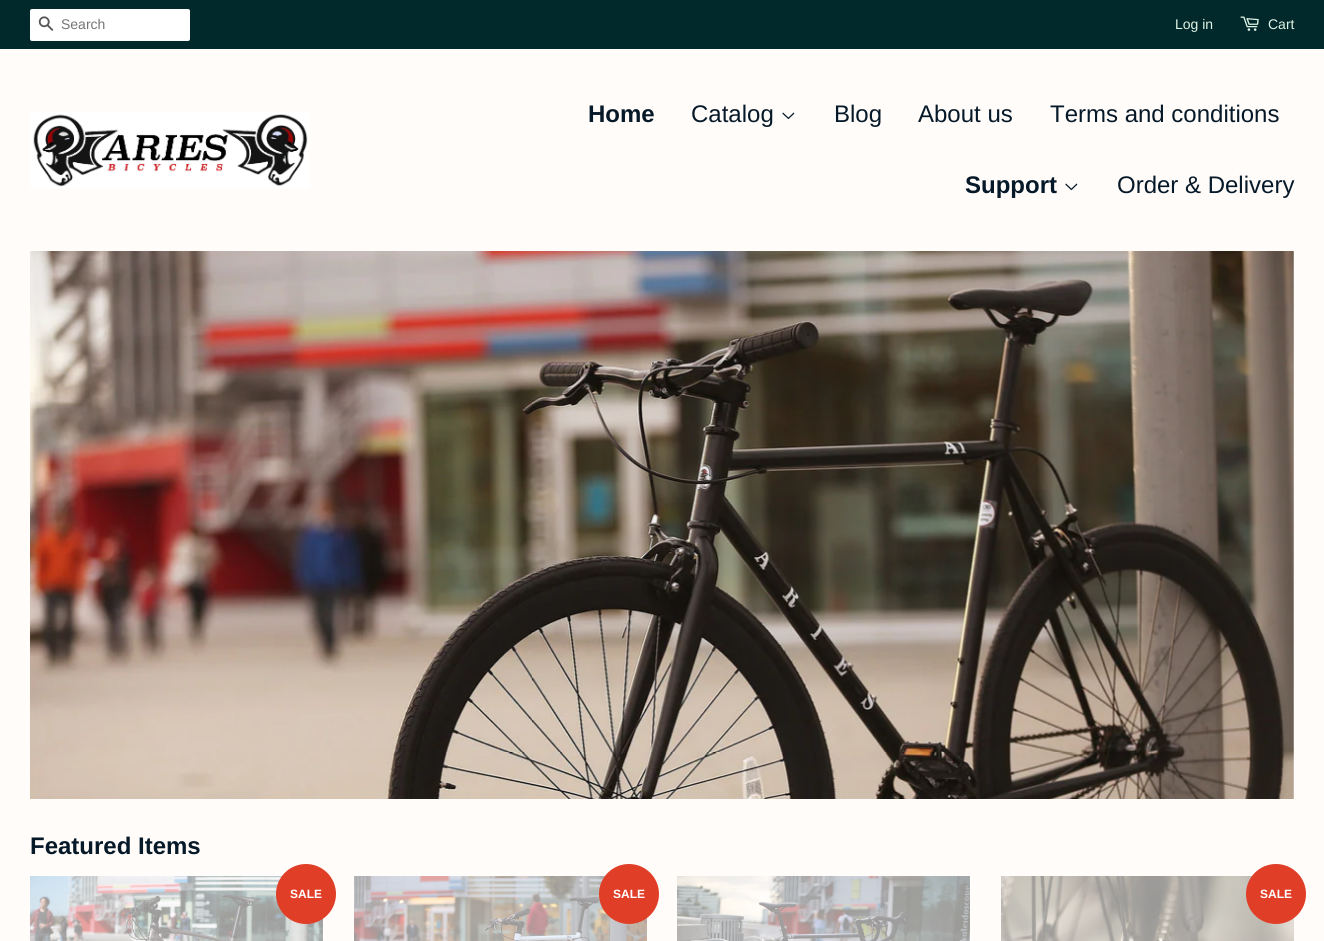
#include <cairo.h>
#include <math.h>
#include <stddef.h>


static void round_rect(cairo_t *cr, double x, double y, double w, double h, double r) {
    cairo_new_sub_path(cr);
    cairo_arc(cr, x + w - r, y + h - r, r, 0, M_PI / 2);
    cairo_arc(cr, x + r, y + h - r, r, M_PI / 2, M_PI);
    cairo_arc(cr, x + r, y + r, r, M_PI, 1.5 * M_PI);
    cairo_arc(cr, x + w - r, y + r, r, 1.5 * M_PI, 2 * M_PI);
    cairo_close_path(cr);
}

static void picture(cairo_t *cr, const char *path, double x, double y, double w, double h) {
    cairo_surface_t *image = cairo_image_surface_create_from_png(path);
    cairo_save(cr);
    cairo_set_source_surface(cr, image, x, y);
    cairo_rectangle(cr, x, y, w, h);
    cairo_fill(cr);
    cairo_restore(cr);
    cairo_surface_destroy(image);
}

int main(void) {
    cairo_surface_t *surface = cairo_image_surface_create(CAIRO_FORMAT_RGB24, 1324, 941);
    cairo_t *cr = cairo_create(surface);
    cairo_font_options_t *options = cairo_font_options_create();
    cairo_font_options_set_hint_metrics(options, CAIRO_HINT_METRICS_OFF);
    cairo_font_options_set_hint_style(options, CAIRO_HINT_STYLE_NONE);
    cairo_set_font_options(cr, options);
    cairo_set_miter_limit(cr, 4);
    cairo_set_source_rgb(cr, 1, 0.988, 0.98);
    cairo_paint(cr);
    cairo_set_source_rgb(cr, 0.004, 0.157, 0.169);
    cairo_rectangle(cr, 0, 0, 1324, 49);
    cairo_fill(cr);
    cairo_set_source_rgb(cr, 1, 1, 1);
    round_rect(cr, 30, 9, 160, 32, 2);
    cairo_fill(cr);
    picture(cr, "img1.png", 38, 16, 16, 15);
    cairo_select_font_face(cr, "Liberation Sans", CAIRO_FONT_SLANT_NORMAL, CAIRO_FONT_WEIGHT_NORMAL);
    cairo_set_font_size(cr, 14);
    cairo_set_source_rgb(cr, 0.459, 0.459, 0.459);
    cairo_move_to(cr, 61, 29);
    cairo_show_text(cr, "Search");
    cairo_set_source_rgb(cr, 0.875, 0.961, 0.902);
    cairo_move_to(cr, 1175, 29);
    cairo_show_text(cr, "Log in");
    picture(cr, "img2.png", 1240, 16, 19, 15);
    cairo_move_to(cr, 1268, 29);
    cairo_show_text(cr, "Cart");
    picture(cr, "img3.png", 30, 112, 280, 76);
    cairo_select_font_face(cr, "Liberation Sans", CAIRO_FONT_SLANT_NORMAL, CAIRO_FONT_WEIGHT_BOLD);
    cairo_set_font_size(cr, 24);
    cairo_set_source_rgb(cr, 0.027, 0.098, 0.161);
    cairo_move_to(cr, 588, 122);
    cairo_show_text(cr, "Home");
    cairo_select_font_face(cr, "Liberation Sans", CAIRO_FONT_SLANT_NORMAL, CAIRO_FONT_WEIGHT_NORMAL);
    cairo_move_to(cr, 691, 122);
    cairo_show_text(cr, "Catalog");
    picture(cr, "img4.png", 782, 112, 13, 8);
    cairo_move_to(cr, 834, 122);
    cairo_show_text(cr, "Blog");
    cairo_move_to(cr, 918, 122);
    cairo_show_text(cr, "About us");
    cairo_move_to(cr, 1050, 122);
    cairo_show_text(cr, "Terms and conditions");
    cairo_select_font_face(cr, "Liberation Sans", CAIRO_FONT_SLANT_NORMAL, CAIRO_FONT_WEIGHT_BOLD);
    cairo_move_to(cr, 965, 193);
    cairo_show_text(cr, "Support");
    picture(cr, "img4.png", 1065, 183, 13, 8);
    cairo_select_font_face(cr, "Liberation Sans", CAIRO_FONT_SLANT_NORMAL, CAIRO_FONT_WEIGHT_NORMAL);
    cairo_move_to(cr, 1117, 193);
    cairo_show_text(cr, "Order & Delivery");
    picture(cr, "img5.png", 30, 251, 1264, 548);
    cairo_select_font_face(cr, "Liberation Sans", CAIRO_FONT_SLANT_NORMAL, CAIRO_FONT_WEIGHT_BOLD);
    cairo_move_to(cr, 30, 854);
    cairo_show_text(cr, "Featured Items");
    picture(cr, "img6.png", 30, 876, 293, 65);
    cairo_set_source_rgb(cr, 0.878, 0.243, 0.153);
    cairo_arc(cr, 306, 894, 30, 0, 2 * M_PI);
    cairo_fill(cr);
    cairo_set_font_size(cr, 12);
    cairo_set_source_rgb(cr, 1, 1, 1);
    cairo_move_to(cr, 290, 898);
    cairo_show_text(cr, "SALE");
    picture(cr, "img7.png", 354, 876, 293, 65);
    cairo_set_source_rgb(cr, 0.878, 0.243, 0.153);
    cairo_arc(cr, 629, 894, 30, 0, 2 * M_PI);
    cairo_fill(cr);
    cairo_set_source_rgb(cr, 1, 1, 1);
    cairo_move_to(cr, 613, 898);
    cairo_show_text(cr, "SALE");
    picture(cr, "img8.png", 677, 876, 293, 65);
    picture(cr, "img9.png", 1001, 876, 293, 65);
    cairo_set_source_rgb(cr, 0.878, 0.243, 0.153);
    cairo_arc(cr, 1276, 894, 30, 0, 2 * M_PI);
    cairo_fill(cr);
    cairo_set_source_rgb(cr, 1, 1, 1);
    cairo_move_to(cr, 1260, 898);
    cairo_show_text(cr, "SALE");
    cairo_surface_write_to_png(surface, "page.png");
    cairo_font_options_destroy(options);
    cairo_destroy(cr);
    cairo_surface_destroy(surface);
    return 0;
}
